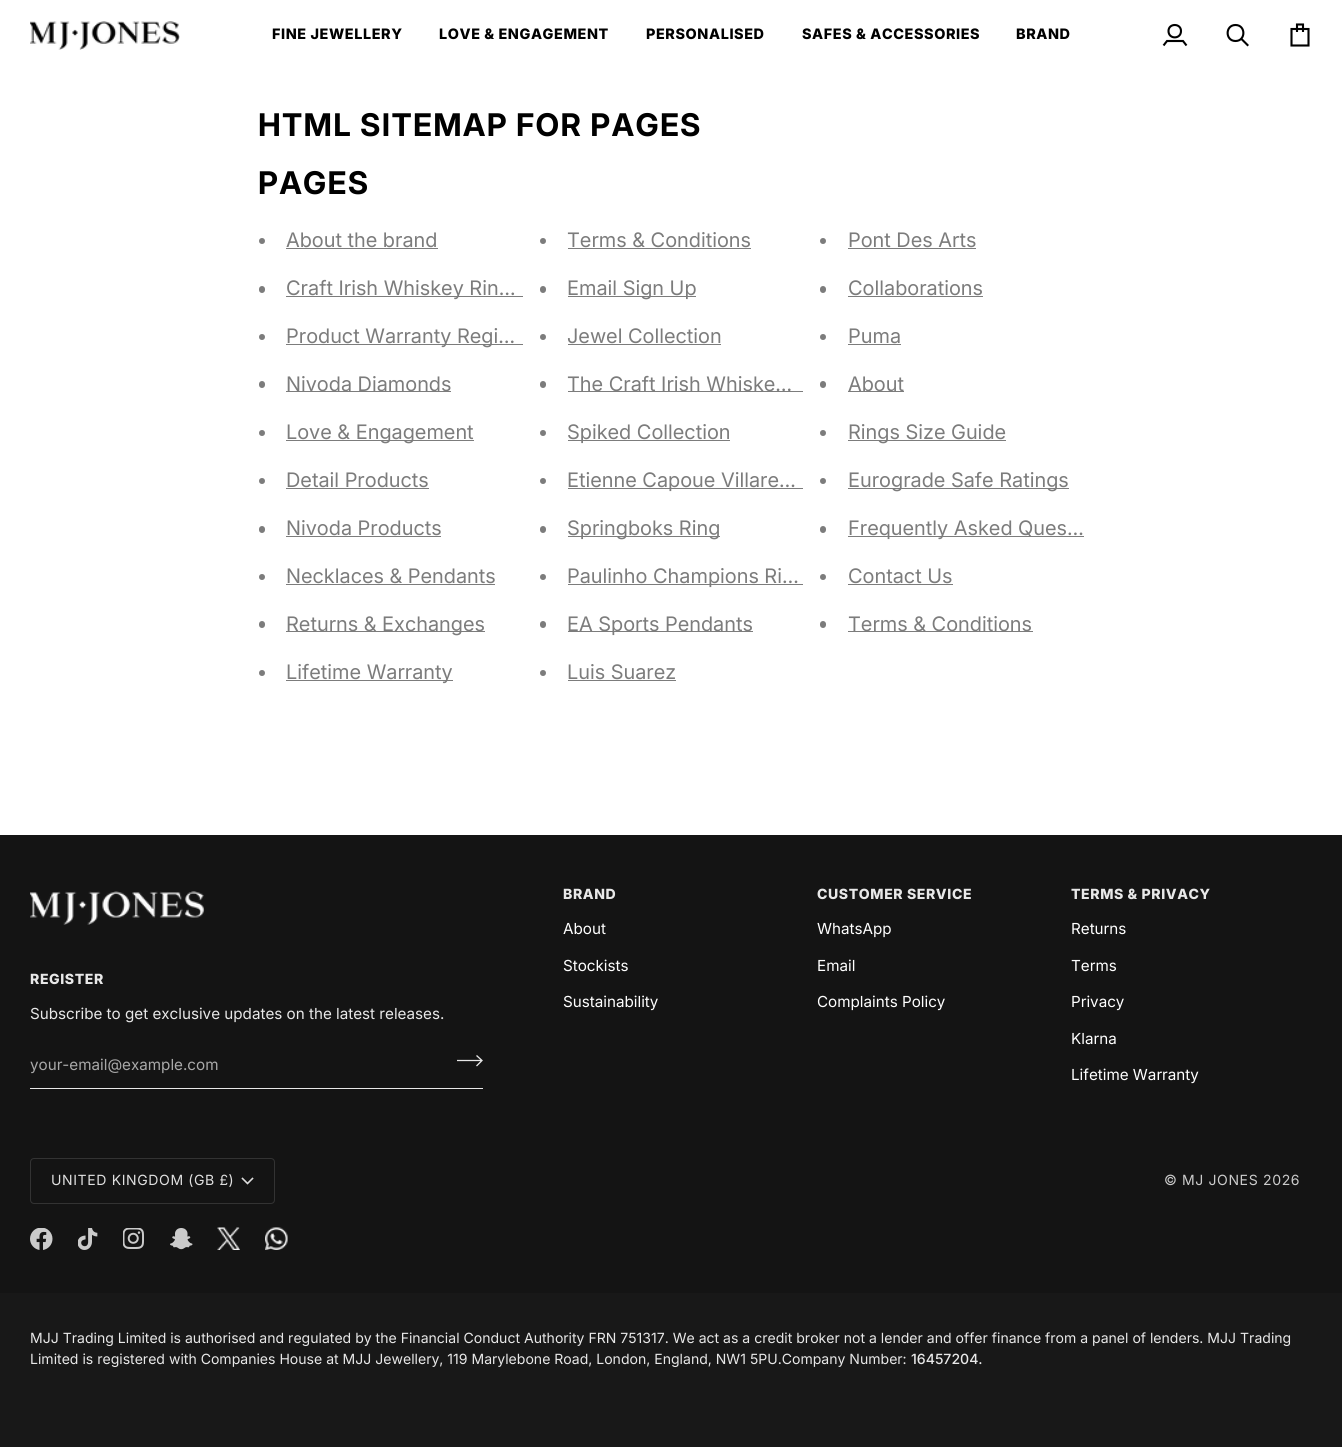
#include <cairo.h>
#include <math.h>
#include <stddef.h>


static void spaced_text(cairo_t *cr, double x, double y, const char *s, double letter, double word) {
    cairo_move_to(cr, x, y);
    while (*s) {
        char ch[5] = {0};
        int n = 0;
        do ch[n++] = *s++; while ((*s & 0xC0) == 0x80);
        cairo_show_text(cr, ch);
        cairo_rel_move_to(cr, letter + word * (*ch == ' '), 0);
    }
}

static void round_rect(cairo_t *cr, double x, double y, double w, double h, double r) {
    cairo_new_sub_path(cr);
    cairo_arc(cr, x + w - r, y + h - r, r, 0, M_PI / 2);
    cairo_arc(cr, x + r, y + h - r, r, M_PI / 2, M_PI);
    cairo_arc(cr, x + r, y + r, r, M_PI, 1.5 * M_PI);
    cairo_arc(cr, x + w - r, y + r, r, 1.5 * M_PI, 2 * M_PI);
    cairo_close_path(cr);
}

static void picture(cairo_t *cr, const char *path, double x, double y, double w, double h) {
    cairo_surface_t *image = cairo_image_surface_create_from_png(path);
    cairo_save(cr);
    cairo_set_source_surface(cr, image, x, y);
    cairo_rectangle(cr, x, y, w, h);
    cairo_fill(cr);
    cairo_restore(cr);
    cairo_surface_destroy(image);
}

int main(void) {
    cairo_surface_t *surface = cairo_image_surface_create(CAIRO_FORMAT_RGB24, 1342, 1447);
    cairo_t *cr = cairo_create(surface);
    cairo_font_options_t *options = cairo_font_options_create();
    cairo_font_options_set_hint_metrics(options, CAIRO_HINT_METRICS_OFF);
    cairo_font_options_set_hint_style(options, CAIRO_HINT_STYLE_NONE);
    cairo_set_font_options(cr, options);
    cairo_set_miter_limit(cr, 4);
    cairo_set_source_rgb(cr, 1, 1, 1);
    cairo_paint(cr);
    picture(cr, "img1.png", 30, 21, 150, 29);
    cairo_select_font_face(cr, "Inter ExtraBold", CAIRO_FONT_SLANT_NORMAL, CAIRO_FONT_WEIGHT_NORMAL);
    cairo_set_font_size(cr, 14.4);
    cairo_set_source_rgb(cr, 0, 0, 0);
    spaced_text(cr, 272, 39, "FINE JEWELLERY", 0.6, 0);
    spaced_text(cr, 439, 39, "LOVE & ENGAGEMENT", 0.6, 0);
    spaced_text(cr, 646, 39, "PERSONALISED", 0.6, 0);
    spaced_text(cr, 802, 39, "SAFES & ACCESSORIES", 0.6, 0);
    spaced_text(cr, 1016, 39, "BRAND", 0.6, 0);
    cairo_new_path(cr);
    cairo_move_to(cr, 1163.5, 45.5);
    cairo_line_to(cr, 1167, 41);
    cairo_line_to(cr, 1183, 41);
    cairo_line_to(cr, 1186.5, 45.5);
    cairo_move_to(cr, 1181, 31);
    cairo_curve_to(cr, 1181, 39.5, 1168.5, 39.5, 1168.5, 31);
    cairo_curve_to(cr, 1168.5, 23, 1181, 23, 1181, 31);
    cairo_close_path(cr);
    cairo_set_line_width(cr, 2.1);
    cairo_stroke(cr);
    cairo_new_path(cr);
    cairo_move_to(cr, 1235.5, 41);
    cairo_curve_to(cr, 1246, 41, 1246, 25, 1235.5, 25);
    cairo_curve_to(cr, 1225, 25, 1225, 41, 1235.5, 41);
    cairo_close_path(cr);
    cairo_move_to(cr, 1247.5, 45);
    cairo_line_to(cr, 1241.5, 39);
    cairo_set_line_cap(cr, CAIRO_LINE_CAP_SQUARE);
    cairo_stroke(cr);
    cairo_new_path(cr);
    cairo_move_to(cr, 1291.5, 29);
    cairo_line_to(cr, 1308.5, 29);
    cairo_line_to(cr, 1308.5, 45.5);
    cairo_line_to(cr, 1291.5, 45.5);
    cairo_close_path(cr);
    cairo_move_to(cr, 1297, 32);
    cairo_line_to(cr, 1297, 24.5);
    cairo_line_to(cr, 1303, 24.5);
    cairo_line_to(cr, 1303, 32);
    cairo_set_line_cap(cr, CAIRO_LINE_CAP_BUTT);
    cairo_stroke(cr);
    cairo_select_font_face(cr, "Inter", CAIRO_FONT_SLANT_NORMAL, CAIRO_FONT_WEIGHT_BOLD);
    cairo_set_font_size(cr, 31.25);
    spaced_text(cr, 258, 136, "HTML SITEMAP FOR PAGES", 1.25, 0);
    spaced_text(cr, 258, 194, "PAGES", 1.25, 0);
    cairo_set_source_rgb(cr, 0.486, 0.486, 0.486);
    cairo_new_path(cr);
    cairo_arc(cr, 262, 241, 3, 0, 2 * M_PI);
    cairo_fill(cr);
    cairo_select_font_face(cr, "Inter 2", CAIRO_FONT_SLANT_NORMAL, CAIRO_FONT_WEIGHT_NORMAL);
    cairo_set_font_size(cr, 20);
    cairo_move_to(cr, 286, 247);
    cairo_show_text(cr, "About the brand");
    cairo_rectangle(cr, 286, 248, 152, 1);
    cairo_fill(cr);
    cairo_arc(cr, 543, 241, 3, 0, 2 * M_PI);
    cairo_fill(cr);
    cairo_move_to(cr, 567, 247);
    cairo_show_text(cr, "Terms & Conditions");
    cairo_rectangle(cr, 568, 248, 183, 1);
    cairo_fill(cr);
    cairo_arc(cr, 823, 241, 3, 0, 2 * M_PI);
    cairo_fill(cr);
    cairo_move_to(cr, 848, 247);
    cairo_show_text(cr, "Pont Des Arts");
    cairo_rectangle(cr, 848, 248, 128, 1);
    cairo_fill(cr);
    round_rect(cr, 259, 286, 6, 7, 3);
    cairo_fill(cr);
    cairo_rectangle(cr, 286, 296, 237, 1);
    cairo_fill(cr);
    cairo_move_to(cr, 286, 295);
    cairo_show_text(cr, "Craft Irish Whiskey Rin…");
    round_rect(cr, 540, 286, 6, 7, 3);
    cairo_fill(cr);
    cairo_rectangle(cr, 568, 296, 128, 1);
    cairo_fill(cr);
    cairo_move_to(cr, 567, 295);
    cairo_show_text(cr, "Email Sign Up");
    round_rect(cr, 820, 286, 6, 7, 3);
    cairo_fill(cr);
    cairo_move_to(cr, 848, 295);
    cairo_show_text(cr, "Collaborations");
    cairo_rectangle(cr, 848, 296, 135, 1);
    cairo_fill(cr);
    cairo_arc(cr, 262, 337, 3, 0, 2 * M_PI);
    cairo_fill(cr);
    cairo_rectangle(cr, 286, 344, 237, 1);
    cairo_fill(cr);
    cairo_move_to(cr, 286, 343);
    cairo_show_text(cr, "Product Warranty Regi…");
    cairo_new_path(cr);
    cairo_arc(cr, 543, 337, 3, 0, 2 * M_PI);
    cairo_fill(cr);
    cairo_move_to(cr, 567, 343);
    cairo_show_text(cr, "Jewel Collection");
    cairo_rectangle(cr, 568, 344, 153, 1);
    cairo_fill(cr);
    cairo_arc(cr, 823, 337, 3, 0, 2 * M_PI);
    cairo_fill(cr);
    cairo_move_to(cr, 848, 343);
    cairo_show_text(cr, "Puma");
    cairo_rectangle(cr, 848, 344, 53, 1);
    cairo_fill(cr);
    round_rect(cr, 259, 381, 6, 7, 3);
    cairo_fill(cr);
    cairo_rectangle(cr, 286, 391, 165, 1);
    cairo_fill(cr);
    cairo_move_to(cr, 286, 391);
    cairo_show_text(cr, "Nivoda Diamonds");
    round_rect(cr, 540, 381, 6, 7, 3);
    cairo_fill(cr);
    cairo_rectangle(cr, 568, 391, 235, 1);
    cairo_fill(cr);
    cairo_move_to(cr, 567, 391);
    cairo_show_text(cr, "The Craft Irish Whiske…");
    round_rect(cr, 820, 381, 6, 7, 3);
    cairo_fill(cr);
    cairo_rectangle(cr, 848, 391, 56, 1);
    cairo_fill(cr);
    cairo_move_to(cr, 848, 391);
    cairo_show_text(cr, "About");
    cairo_new_path(cr);
    cairo_arc(cr, 262, 433, 3, 0, 2 * M_PI);
    cairo_fill(cr);
    cairo_rectangle(cr, 286, 440, 188, 1);
    cairo_fill(cr);
    cairo_move_to(cr, 286, 439);
    cairo_show_text(cr, "Love & Engagement");
    cairo_new_path(cr);
    cairo_arc(cr, 543, 433, 3, 0, 2 * M_PI);
    cairo_fill(cr);
    cairo_rectangle(cr, 568, 440, 162, 1);
    cairo_fill(cr);
    cairo_move_to(cr, 567, 439);
    cairo_show_text(cr, "Spiked Collection");
    cairo_new_path(cr);
    cairo_arc(cr, 823, 433, 3, 0, 2 * M_PI);
    cairo_fill(cr);
    cairo_rectangle(cr, 848, 440, 158, 1);
    cairo_fill(cr);
    cairo_move_to(cr, 848, 439);
    cairo_show_text(cr, "Rings Size Guide");
    cairo_new_path(cr);
    cairo_arc(cr, 262, 481, 3, 0, 2 * M_PI);
    cairo_fill(cr);
    cairo_move_to(cr, 286, 487);
    cairo_show_text(cr, "Detail Products");
    cairo_rectangle(cr, 286, 488, 143, 1);
    cairo_fill(cr);
    cairo_arc(cr, 543, 481, 3, 0, 2 * M_PI);
    cairo_fill(cr);
    cairo_rectangle(cr, 568, 488, 235, 1);
    cairo_fill(cr);
    cairo_move_to(cr, 567, 487);
    cairo_show_text(cr, "Etienne Capoue Villare…");
    cairo_new_path(cr);
    cairo_arc(cr, 823, 481, 3, 0, 2 * M_PI);
    cairo_fill(cr);
    cairo_rectangle(cr, 848, 488, 221, 1);
    cairo_fill(cr);
    cairo_move_to(cr, 848, 487);
    cairo_show_text(cr, "Eurograde Safe Ratings");
    round_rect(cr, 259, 526, 6, 7, 3);
    cairo_fill(cr);
    cairo_move_to(cr, 286, 535);
    cairo_show_text(cr, "Nivoda Products");
    cairo_rectangle(cr, 286, 536, 155, 1);
    cairo_fill(cr);
    round_rect(cr, 540, 526, 6, 7, 3);
    cairo_fill(cr);
    cairo_rectangle(cr, 568, 536, 152, 1);
    cairo_fill(cr);
    cairo_move_to(cr, 567, 535);
    cairo_show_text(cr, "Springboks Ring");
    round_rect(cr, 820, 526, 6, 7, 3);
    cairo_fill(cr);
    cairo_rectangle(cr, 848, 536, 236, 1);
    cairo_fill(cr);
    cairo_move_to(cr, 848, 535);
    cairo_show_text(cr, "Frequently Asked Ques…");
    cairo_new_path(cr);
    cairo_arc(cr, 262, 577, 3, 0, 2 * M_PI);
    cairo_fill(cr);
    cairo_move_to(cr, 286, 583);
    cairo_show_text(cr, "Necklaces & Pendants");
    cairo_rectangle(cr, 286, 584, 209, 1);
    cairo_fill(cr);
    cairo_arc(cr, 543, 577, 3, 0, 2 * M_PI);
    cairo_fill(cr);
    cairo_rectangle(cr, 568, 584, 235, 1);
    cairo_fill(cr);
    cairo_move_to(cr, 567, 583);
    cairo_show_text(cr, "Paulinho Champions Ri…");
    cairo_new_path(cr);
    cairo_arc(cr, 823, 577, 3, 0, 2 * M_PI);
    cairo_fill(cr);
    cairo_move_to(cr, 848, 583);
    cairo_show_text(cr, "Contact Us");
    cairo_rectangle(cr, 848, 584, 105, 1);
    cairo_fill(cr);
    round_rect(cr, 259, 621, 6, 7, 3);
    cairo_fill(cr);
    cairo_rectangle(cr, 286, 631, 199, 1);
    cairo_fill(cr);
    cairo_move_to(cr, 286, 631);
    cairo_show_text(cr, "Returns & Exchanges");
    round_rect(cr, 540, 621, 6, 7, 3);
    cairo_fill(cr);
    cairo_rectangle(cr, 568, 631, 185, 1);
    cairo_fill(cr);
    cairo_move_to(cr, 567, 631);
    cairo_show_text(cr, "EA Sports Pendants");
    round_rect(cr, 820, 621, 6, 7, 3);
    cairo_fill(cr);
    cairo_rectangle(cr, 848, 631, 185, 1);
    cairo_fill(cr);
    cairo_move_to(cr, 848, 631);
    cairo_show_text(cr, "Terms & Conditions");
    cairo_new_path(cr);
    cairo_arc(cr, 262, 673, 3, 0, 2 * M_PI);
    cairo_fill(cr);
    cairo_rectangle(cr, 286, 680, 167, 1);
    cairo_fill(cr);
    cairo_move_to(cr, 286, 679);
    cairo_show_text(cr, "Lifetime Warranty");
    cairo_new_path(cr);
    cairo_arc(cr, 543, 673, 3, 0, 2 * M_PI);
    cairo_fill(cr);
    cairo_move_to(cr, 567, 679);
    cairo_show_text(cr, "Luis Suarez");
    cairo_rectangle(cr, 568, 680, 108, 1);
    cairo_fill(cr);
    cairo_set_source_rgb(cr, 0.082, 0.082, 0.082);
    cairo_rectangle(cr, 0, 835, 1342, 458);
    cairo_fill(cr);
    picture(cr, "img2.png", 30, 891, 175, 34);
    cairo_select_font_face(cr, "Inter ExtraBold", CAIRO_FONT_SLANT_NORMAL, CAIRO_FONT_WEIGHT_NORMAL);
    cairo_set_font_size(cr, 14.05);
    cairo_set_source_rgb(cr, 0.91, 0.91, 0.91);
    spaced_text(cr, 30, 984, "REGISTER", 0.6, 0);
    cairo_select_font_face(cr, "Inter", CAIRO_FONT_SLANT_NORMAL, CAIRO_FONT_WEIGHT_NORMAL);
    cairo_set_font_size(cr, 15.2);
    cairo_move_to(cr, 30, 1019);
    cairo_show_text(cr, "Subscribe to get exclusive updates on the latest releases.");
    cairo_rectangle(cr, 30, 1088, 453, 1);
    cairo_fill(cr);
    cairo_set_source_rgb(cr, 0.663, 0.663, 0.663);
    cairo_move_to(cr, 30, 1070);
    cairo_show_text(cr, "your-email@example.com");
    cairo_new_path(cr);
    cairo_move_to(cr, 476.5, 1055.5);
    cairo_line_to(cr, 482, 1060.5);
    cairo_line_to(cr, 476.5, 1066);
    cairo_move_to(cr, 457, 1060.5);
    cairo_line_to(cr, 482, 1060.5);
    cairo_set_source_rgb(cr, 0.91, 0.91, 0.91);
    cairo_set_line_width(cr, 1.3);
    cairo_stroke(cr);
    cairo_select_font_face(cr, "Inter ExtraBold", CAIRO_FONT_SLANT_NORMAL, CAIRO_FONT_WEIGHT_NORMAL);
    cairo_set_font_size(cr, 14.05);
    spaced_text(cr, 563, 899, "BRAND", 0.6, 0);
    cairo_select_font_face(cr, "Inter", CAIRO_FONT_SLANT_NORMAL, CAIRO_FONT_WEIGHT_NORMAL);
    cairo_set_font_size(cr, 15.2);
    cairo_set_source_rgb(cr, 1, 1, 1);
    cairo_move_to(cr, 563, 934);
    cairo_show_text(cr, "About");
    cairo_move_to(cr, 563, 971);
    cairo_show_text(cr, "Stockists");
    cairo_move_to(cr, 563, 1007);
    cairo_show_text(cr, "Sustainability");
    cairo_select_font_face(cr, "Inter ExtraBold", CAIRO_FONT_SLANT_NORMAL, CAIRO_FONT_WEIGHT_NORMAL);
    cairo_set_font_size(cr, 14.05);
    cairo_set_source_rgb(cr, 0.91, 0.91, 0.91);
    spaced_text(cr, 817, 899, "CUSTOMER SERVICE", 0.6, 0);
    cairo_select_font_face(cr, "Inter", CAIRO_FONT_SLANT_NORMAL, CAIRO_FONT_WEIGHT_NORMAL);
    cairo_set_font_size(cr, 15.2);
    cairo_set_source_rgb(cr, 1, 1, 1);
    cairo_move_to(cr, 817, 934);
    cairo_show_text(cr, "WhatsApp");
    cairo_move_to(cr, 817, 971);
    cairo_show_text(cr, "Email");
    cairo_move_to(cr, 817, 1007);
    cairo_show_text(cr, "Complaints Policy");
    cairo_select_font_face(cr, "Inter ExtraBold", CAIRO_FONT_SLANT_NORMAL, CAIRO_FONT_WEIGHT_NORMAL);
    cairo_set_font_size(cr, 14.05);
    cairo_set_source_rgb(cr, 0.91, 0.91, 0.91);
    spaced_text(cr, 1071, 899, "TERMS & PRIVACY", 0.6, 0);
    cairo_select_font_face(cr, "Inter", CAIRO_FONT_SLANT_NORMAL, CAIRO_FONT_WEIGHT_NORMAL);
    cairo_set_font_size(cr, 15.2);
    cairo_set_source_rgb(cr, 1, 1, 1);
    cairo_move_to(cr, 1071, 934);
    cairo_show_text(cr, "Returns");
    cairo_move_to(cr, 1071, 971);
    cairo_show_text(cr, "Terms");
    cairo_move_to(cr, 1071, 1007);
    cairo_show_text(cr, "Privacy");
    cairo_move_to(cr, 1071, 1044);
    cairo_show_text(cr, "Klarna");
    cairo_move_to(cr, 1071, 1080);
    cairo_show_text(cr, "Lifetime Warranty");
    round_rect(cr, 30.5, 1158.5, 244, 45, 3.5);
    cairo_set_source_rgb(cr, 0.2, 0.2, 0.2);
    cairo_set_line_width(cr, 1);
    cairo_stroke(cr);
    cairo_set_font_size(cr, 14.05);
    cairo_set_source_rgb(cr, 0.875, 0.875, 0.875);
    spaced_text(cr, 51, 1185, "UNITED KINGDOM (GB £)", 0.6, 0);
    cairo_new_path(cr);
    cairo_move_to(cr, 242.5, 1178.5);
    cairo_line_to(cr, 247.5, 1183.5);
    cairo_line_to(cr, 252.5, 1178.5);
    cairo_set_line_width(cr, 1.6);
    cairo_set_line_cap(cr, CAIRO_LINE_CAP_SQUARE);
    cairo_stroke(cr);
    cairo_set_source_rgb(cr, 0.796, 0.796, 0.796);
    spaced_text(cr, 1164, 1185, "© MJ JONES", 0.6, 0);
    spaced_text(cr, 1263, 1185, "2026", 0.6, 0);
    picture(cr, "img3.png", 30, 1228, 23, 22);
    picture(cr, "img4.png", 78, 1228, 20, 22);
    picture(cr, "img5.png", 123, 1228, 21, 21);
    picture(cr, "img6.png", 170, 1228, 23, 22);
    picture(cr, "img7.png", 217, 1227, 23, 23);
    picture(cr, "img8.png", 265, 1227, 23, 23);
    cairo_set_source_rgb(cr, 0.094, 0.094, 0.094);
    cairo_rectangle(cr, 0, 1293, 1342, 154);
    cairo_fill(cr);
    cairo_set_source_rgb(cr, 0.91, 0.91, 0.91);
    cairo_move_to(cr, 30, 1343);
    cairo_show_text(cr, "MJJ Trading Limited is authorised and regulated by the Financial Conduct Authority FRN 751317. We act as a credit broker not a lender and offer finance from a panel of lenders. MJJ Trading");
    cairo_move_to(cr, 30, 1364);
    cairo_show_text(cr, "Limited is registered with Companies House at MJJ Jewellery, 119 Marylebone Road, London, England, NW1 5PU.Company Number:");
    cairo_select_font_face(cr, "Inter Medium", CAIRO_FONT_SLANT_NORMAL, CAIRO_FONT_WEIGHT_NORMAL);
    cairo_move_to(cr, 911, 1364);
    cairo_show_text(cr, "16457204.");
    cairo_surface_write_to_png(surface, "page.png");
    cairo_font_options_destroy(options);
    cairo_destroy(cr);
    cairo_surface_destroy(surface);
    return 0;
}
